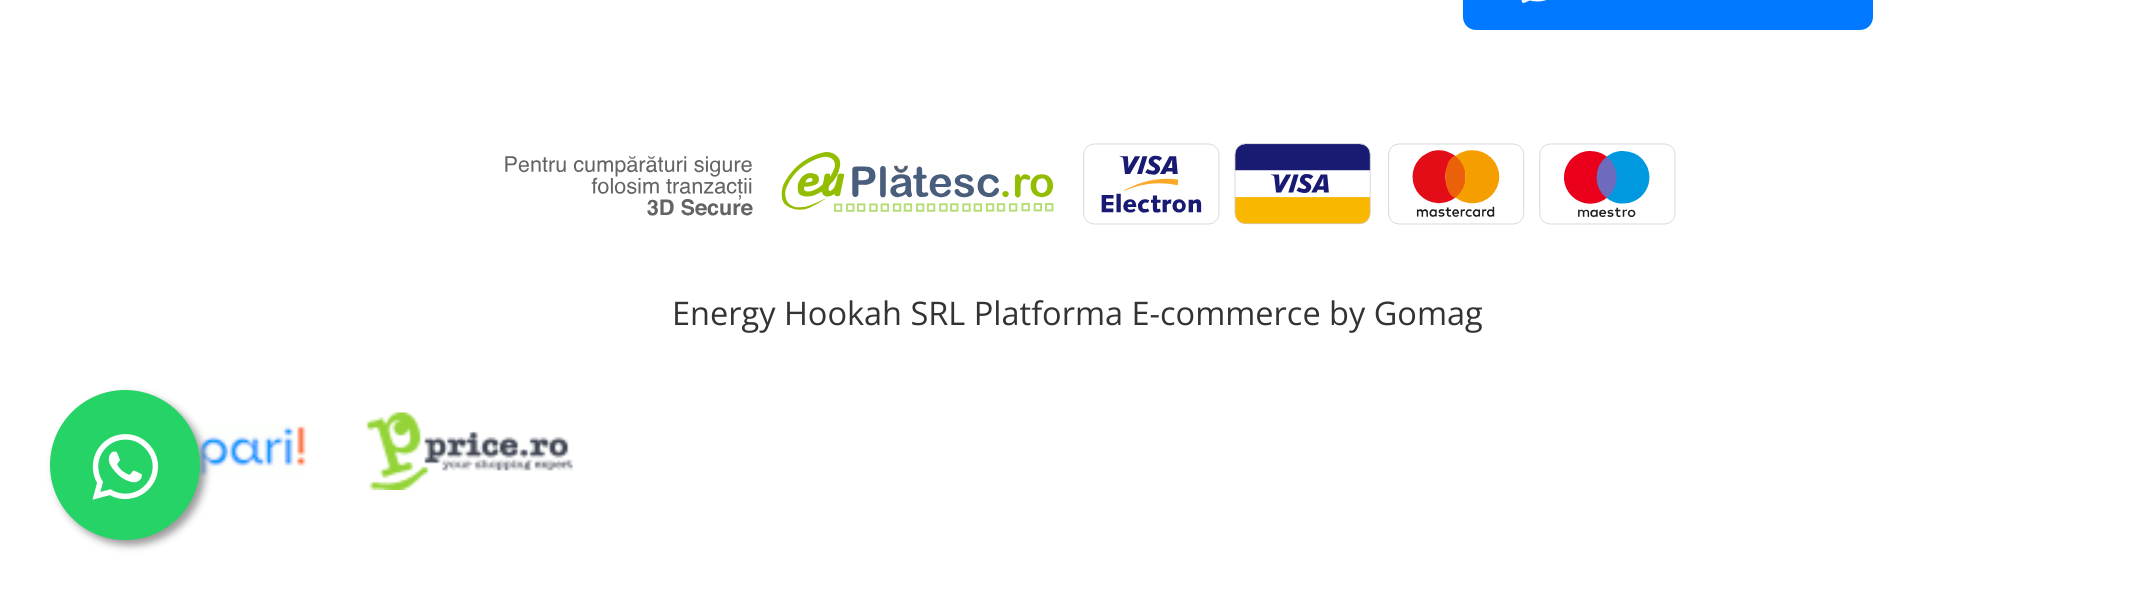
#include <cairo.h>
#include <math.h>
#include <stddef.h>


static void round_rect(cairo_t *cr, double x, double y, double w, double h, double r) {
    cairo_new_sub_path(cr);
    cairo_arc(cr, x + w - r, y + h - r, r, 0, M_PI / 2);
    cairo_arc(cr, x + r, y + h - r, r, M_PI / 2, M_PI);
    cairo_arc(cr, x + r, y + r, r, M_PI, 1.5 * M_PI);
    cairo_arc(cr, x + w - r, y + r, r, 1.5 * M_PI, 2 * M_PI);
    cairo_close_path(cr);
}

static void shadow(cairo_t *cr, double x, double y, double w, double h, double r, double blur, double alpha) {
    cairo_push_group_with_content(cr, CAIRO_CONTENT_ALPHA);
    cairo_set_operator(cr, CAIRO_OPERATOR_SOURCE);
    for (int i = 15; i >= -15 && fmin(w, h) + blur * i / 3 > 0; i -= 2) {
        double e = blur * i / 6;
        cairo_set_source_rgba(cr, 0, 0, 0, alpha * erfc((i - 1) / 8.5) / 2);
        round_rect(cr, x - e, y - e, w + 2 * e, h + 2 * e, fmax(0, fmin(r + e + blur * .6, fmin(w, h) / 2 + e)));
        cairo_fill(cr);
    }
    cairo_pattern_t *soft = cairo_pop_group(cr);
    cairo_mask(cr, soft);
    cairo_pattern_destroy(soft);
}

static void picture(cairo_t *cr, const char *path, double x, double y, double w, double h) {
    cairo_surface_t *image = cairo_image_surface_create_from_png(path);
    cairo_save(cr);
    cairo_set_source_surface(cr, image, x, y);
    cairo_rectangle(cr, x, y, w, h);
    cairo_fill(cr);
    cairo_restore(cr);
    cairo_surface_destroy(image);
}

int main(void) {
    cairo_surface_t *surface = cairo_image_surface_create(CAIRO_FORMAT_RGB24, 2154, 590);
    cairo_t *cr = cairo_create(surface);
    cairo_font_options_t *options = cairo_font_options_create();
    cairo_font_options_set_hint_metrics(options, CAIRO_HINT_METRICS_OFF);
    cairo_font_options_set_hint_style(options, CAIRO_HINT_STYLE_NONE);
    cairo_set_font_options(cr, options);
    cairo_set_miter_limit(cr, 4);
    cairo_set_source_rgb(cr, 1, 1, 1);
    cairo_paint(cr);
    cairo_set_source_rgb(cr, 0, 0.471, 1);
    round_rect(cr, 1463, -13, 410, 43, 13);
    cairo_fill(cr);
    picture(cr, "img1.png", 1521, 0, 25, 3);
    picture(cr, "img2.png", 505, 143, 1171, 82);
    cairo_select_font_face(cr, "Open Sans", CAIRO_FONT_SLANT_NORMAL, CAIRO_FONT_WEIGHT_NORMAL);
    cairo_set_font_size(cr, 32.5);
    cairo_set_source_rgb(cr, 0.2, 0.2, 0.2);
    cairo_move_to(cr, 672, 325);
    cairo_show_text(cr, "Energy Hookah SRL Platforma E-commerce by Gomag");
    picture(cr, "img3.png", 187, 424, 119, 52);
    picture(cr, "img4.png", 365, 412, 208, 78);
    cairo_set_source_rgb(cr, 0.6, 0.6, 0.6);
    shadow(cr, 55, 395, 150, 150, 75, 4, 1);
    cairo_set_source_rgb(cr, 0.145, 0.827, 0.4);
    cairo_arc(cr, 125, 465, 75, 0, 2 * M_PI);
    cairo_fill(cr);
    picture(cr, "img5.png", 92, 434, 67, 66);
    cairo_surface_write_to_png(surface, "page.png");
    cairo_font_options_destroy(options);
    cairo_destroy(cr);
    cairo_surface_destroy(surface);
    return 0;
}
